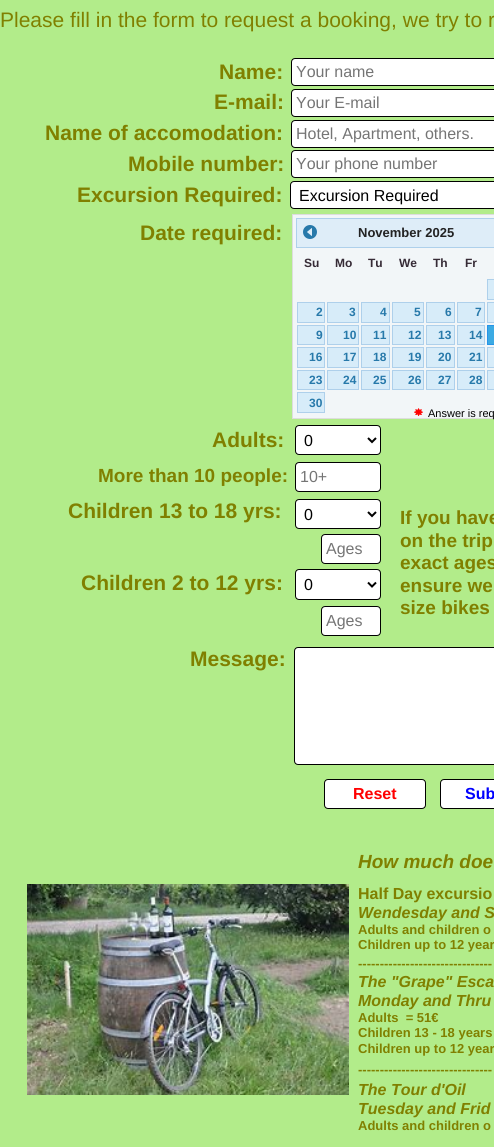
#include <cairo.h>
#include <math.h>
#include <stddef.h>


static void round_rect(cairo_t *cr, double x, double y, double w, double h, double r) {
    cairo_new_sub_path(cr);
    cairo_arc(cr, x + w - r, y + h - r, r, 0, M_PI / 2);
    cairo_arc(cr, x + r, y + h - r, r, M_PI / 2, M_PI);
    cairo_arc(cr, x + r, y + r, r, M_PI, 1.5 * M_PI);
    cairo_arc(cr, x + w - r, y + r, r, 1.5 * M_PI, 2 * M_PI);
    cairo_close_path(cr);
}

static void picture(cairo_t *cr, const char *path, double x, double y, double w, double h) {
    cairo_surface_t *image = cairo_image_surface_create_from_png(path);
    cairo_save(cr);
    cairo_set_source_surface(cr, image, x, y);
    cairo_rectangle(cr, x, y, w, h);
    cairo_fill(cr);
    cairo_restore(cr);
    cairo_surface_destroy(image);
}

int main(void) {
    cairo_surface_t *surface = cairo_image_surface_create(CAIRO_FORMAT_RGB24, 494, 1147);
    cairo_t *cr = cairo_create(surface);
    cairo_font_options_t *options = cairo_font_options_create();
    cairo_font_options_set_hint_metrics(options, CAIRO_HINT_METRICS_OFF);
    cairo_font_options_set_hint_style(options, CAIRO_HINT_STYLE_NONE);
    cairo_set_font_options(cr, options);
    cairo_set_miter_limit(cr, 4);
    cairo_set_source_rgb(cr, 0.698, 0.925, 0.541);
    cairo_paint(cr);
    cairo_select_font_face(cr, "Liberation Sans", CAIRO_FONT_SLANT_NORMAL, CAIRO_FONT_WEIGHT_NORMAL);
    cairo_set_font_size(cr, 21);
    cairo_set_source_rgb(cr, 0.502, 0.502, 0);
    cairo_move_to(cr, 0, 27);
    cairo_show_text(cr, "Please fill in the form to request a booking, we try to r");
    cairo_select_font_face(cr, "Liberation Sans", CAIRO_FONT_SLANT_NORMAL, CAIRO_FONT_WEIGHT_BOLD);
    cairo_move_to(cr, 219, 79);
    cairo_show_text(cr, "Name:");
    cairo_set_source_rgb(cr, 1, 1, 1);
    round_rect(cr, 291.5, 58.5, 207, 27, 3.5);
    cairo_fill_preserve(cr);
    cairo_set_source_rgb(cr, 0, 0, 0);
    cairo_set_line_width(cr, 1);
    cairo_stroke(cr);
    cairo_select_font_face(cr, "Liberation Sans", CAIRO_FONT_SLANT_NORMAL, CAIRO_FONT_WEIGHT_NORMAL);
    cairo_set_font_size(cr, 16);
    cairo_set_source_rgb(cr, 0.459, 0.459, 0.459);
    cairo_move_to(cr, 296, 77);
    cairo_show_text(cr, "Your name");
    cairo_select_font_face(cr, "Liberation Sans", CAIRO_FONT_SLANT_NORMAL, CAIRO_FONT_WEIGHT_BOLD);
    cairo_set_font_size(cr, 21);
    cairo_set_source_rgb(cr, 0.502, 0.502, 0);
    cairo_move_to(cr, 214, 109);
    cairo_show_text(cr, "E-mail:");
    cairo_set_source_rgb(cr, 1, 1, 1);
    round_rect(cr, 291.5, 89.5, 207, 27, 3.5);
    cairo_fill_preserve(cr);
    cairo_set_source_rgb(cr, 0, 0, 0);
    cairo_stroke(cr);
    cairo_select_font_face(cr, "Liberation Sans", CAIRO_FONT_SLANT_NORMAL, CAIRO_FONT_WEIGHT_NORMAL);
    cairo_set_font_size(cr, 16);
    cairo_set_source_rgb(cr, 0.459, 0.459, 0.459);
    cairo_move_to(cr, 296, 108);
    cairo_show_text(cr, "Your E-mail");
    cairo_select_font_face(cr, "Liberation Sans", CAIRO_FONT_SLANT_NORMAL, CAIRO_FONT_WEIGHT_BOLD);
    cairo_set_font_size(cr, 21);
    cairo_set_source_rgb(cr, 0.502, 0.502, 0);
    cairo_move_to(cr, 45, 140);
    cairo_show_text(cr, "Name of accomodation:");
    cairo_set_source_rgb(cr, 1, 1, 1);
    round_rect(cr, 291.5, 120.5, 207, 27, 3.5);
    cairo_fill_preserve(cr);
    cairo_set_source_rgb(cr, 0, 0, 0);
    cairo_stroke(cr);
    cairo_select_font_face(cr, "Liberation Sans", CAIRO_FONT_SLANT_NORMAL, CAIRO_FONT_WEIGHT_NORMAL);
    cairo_set_font_size(cr, 16);
    cairo_set_source_rgb(cr, 0.459, 0.459, 0.459);
    cairo_move_to(cr, 296, 139);
    cairo_show_text(cr, "Hotel, Apartment, others.");
    cairo_select_font_face(cr, "Liberation Sans", CAIRO_FONT_SLANT_NORMAL, CAIRO_FONT_WEIGHT_BOLD);
    cairo_set_font_size(cr, 21);
    cairo_set_source_rgb(cr, 0.502, 0.502, 0);
    cairo_move_to(cr, 128, 171);
    cairo_show_text(cr, "Mobile number:");
    cairo_set_source_rgb(cr, 1, 1, 1);
    round_rect(cr, 291.5, 150.5, 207, 27, 3.5);
    cairo_fill_preserve(cr);
    cairo_set_source_rgb(cr, 0, 0, 0);
    cairo_stroke(cr);
    cairo_select_font_face(cr, "Liberation Sans", CAIRO_FONT_SLANT_NORMAL, CAIRO_FONT_WEIGHT_NORMAL);
    cairo_set_font_size(cr, 16);
    cairo_set_source_rgb(cr, 0.459, 0.459, 0.459);
    cairo_move_to(cr, 296, 169);
    cairo_show_text(cr, "Your phone number");
    cairo_select_font_face(cr, "Liberation Sans", CAIRO_FONT_SLANT_NORMAL, CAIRO_FONT_WEIGHT_BOLD);
    cairo_set_font_size(cr, 21);
    cairo_set_source_rgb(cr, 0.502, 0.502, 0);
    cairo_move_to(cr, 77, 202);
    cairo_show_text(cr, "Excursion Required:");
    cairo_set_source_rgb(cr, 1, 1, 1);
    round_rect(cr, 290.5, 181.5, 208, 27, 3.5);
    cairo_fill_preserve(cr);
    cairo_set_source_rgb(cr, 0, 0, 0);
    cairo_stroke(cr);
    cairo_select_font_face(cr, "Liberation Sans", CAIRO_FONT_SLANT_NORMAL, CAIRO_FONT_WEIGHT_NORMAL);
    cairo_set_font_size(cr, 16);
    cairo_move_to(cr, 299, 201);
    cairo_show_text(cr, "Excursion Required");
    cairo_select_font_face(cr, "Liberation Sans", CAIRO_FONT_SLANT_NORMAL, CAIRO_FONT_WEIGHT_BOLD);
    cairo_set_font_size(cr, 21);
    cairo_set_source_rgb(cr, 0.502, 0.502, 0);
    cairo_move_to(cr, 140, 240);
    cairo_show_text(cr, "Date required:");
    cairo_set_source_rgb(cr, 0.949, 0.961, 0.969);
    cairo_rectangle(cr, 292.5, 214.5, 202, 204);
    cairo_fill_preserve(cr);
    cairo_set_source_rgb(cr, 0.867, 0.867, 0.867);
    cairo_stroke(cr);
    cairo_set_source_rgb(cr, 0.871, 0.929, 0.969);
    cairo_rectangle(cr, 296.5, 218.5, 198, 29);
    cairo_fill_preserve(cr);
    cairo_set_source_rgb(cr, 0.682, 0.816, 0.918);
    cairo_stroke(cr);
    picture(cr, "img1.png", 303, 225, 14, 14);
    cairo_set_font_size(cr, 13);
    cairo_set_source_rgb(cr, 0.133, 0.133, 0.133);
    cairo_move_to(cr, 358, 237);
    cairo_show_text(cr, "November 2025");
    cairo_set_font_size(cr, 12);
    cairo_set_source_rgb(cr, 0.212, 0.169, 0.212);
    cairo_move_to(cr, 304, 267);
    cairo_show_text(cr, "Su");
    cairo_move_to(cr, 335, 267);
    cairo_show_text(cr, "Mo");
    cairo_move_to(cr, 368, 267);
    cairo_show_text(cr, "Tu");
    cairo_move_to(cr, 399, 267);
    cairo_show_text(cr, "We");
    cairo_move_to(cr, 433, 267);
    cairo_show_text(cr, "Th");
    cairo_move_to(cr, 465, 267);
    cairo_show_text(cr, "Fr");
    cairo_set_source_rgb(cr, 0.843, 0.922, 0.976);
    cairo_rectangle(cr, 487.5, 279.5, 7, 20);
    cairo_fill_preserve(cr);
    cairo_set_source_rgb(cr, 0.682, 0.816, 0.918);
    cairo_stroke(cr);
    cairo_set_source_rgb(cr, 0.843, 0.922, 0.976);
    cairo_rectangle(cr, 297.5, 302.5, 27, 20);
    cairo_fill_preserve(cr);
    cairo_set_source_rgb(cr, 0.682, 0.816, 0.918);
    cairo_stroke(cr);
    cairo_set_source_rgb(cr, 0.153, 0.475, 0.667);
    cairo_move_to(cr, 316, 316);
    cairo_show_text(cr, "2");
    cairo_set_source_rgb(cr, 0.843, 0.922, 0.976);
    cairo_rectangle(cr, 327.5, 302.5, 31, 20);
    cairo_fill_preserve(cr);
    cairo_set_source_rgb(cr, 0.682, 0.816, 0.918);
    cairo_stroke(cr);
    cairo_set_source_rgb(cr, 0.153, 0.475, 0.667);
    cairo_move_to(cr, 349, 316);
    cairo_show_text(cr, "3");
    cairo_set_source_rgb(cr, 0.843, 0.922, 0.976);
    cairo_rectangle(cr, 361.5, 302.5, 28, 20);
    cairo_fill_preserve(cr);
    cairo_set_source_rgb(cr, 0.682, 0.816, 0.918);
    cairo_stroke(cr);
    cairo_set_source_rgb(cr, 0.153, 0.475, 0.667);
    cairo_move_to(cr, 380, 316);
    cairo_show_text(cr, "4");
    cairo_set_source_rgb(cr, 0.843, 0.922, 0.976);
    cairo_rectangle(cr, 392.5, 302.5, 31, 20);
    cairo_fill_preserve(cr);
    cairo_set_source_rgb(cr, 0.682, 0.816, 0.918);
    cairo_stroke(cr);
    cairo_set_source_rgb(cr, 0.153, 0.475, 0.667);
    cairo_move_to(cr, 414, 316);
    cairo_show_text(cr, "5");
    cairo_set_source_rgb(cr, 0.843, 0.922, 0.976);
    cairo_rectangle(cr, 426.5, 302.5, 28, 20);
    cairo_fill_preserve(cr);
    cairo_set_source_rgb(cr, 0.682, 0.816, 0.918);
    cairo_stroke(cr);
    cairo_set_source_rgb(cr, 0.153, 0.475, 0.667);
    cairo_move_to(cr, 445, 316);
    cairo_show_text(cr, "6");
    cairo_set_source_rgb(cr, 0.843, 0.922, 0.976);
    cairo_rectangle(cr, 457.5, 302.5, 27, 20);
    cairo_fill_preserve(cr);
    cairo_set_source_rgb(cr, 0.682, 0.816, 0.918);
    cairo_stroke(cr);
    cairo_set_source_rgb(cr, 0.153, 0.475, 0.667);
    cairo_move_to(cr, 475, 316);
    cairo_show_text(cr, "7");
    cairo_set_source_rgb(cr, 0.843, 0.922, 0.976);
    cairo_rectangle(cr, 487.5, 302.5, 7, 20);
    cairo_fill_preserve(cr);
    cairo_set_source_rgb(cr, 0.682, 0.816, 0.918);
    cairo_stroke(cr);
    cairo_set_source_rgb(cr, 0.843, 0.922, 0.976);
    cairo_rectangle(cr, 297.5, 325.5, 27, 19);
    cairo_fill_preserve(cr);
    cairo_set_source_rgb(cr, 0.682, 0.816, 0.918);
    cairo_stroke(cr);
    cairo_set_source_rgb(cr, 0.153, 0.475, 0.667);
    cairo_move_to(cr, 316, 339);
    cairo_show_text(cr, "9");
    cairo_set_source_rgb(cr, 0.843, 0.922, 0.976);
    cairo_rectangle(cr, 327.5, 325.5, 31, 19);
    cairo_fill_preserve(cr);
    cairo_set_source_rgb(cr, 0.682, 0.816, 0.918);
    cairo_stroke(cr);
    cairo_set_source_rgb(cr, 0.153, 0.475, 0.667);
    cairo_move_to(cr, 343, 339);
    cairo_show_text(cr, "10");
    cairo_set_source_rgb(cr, 0.843, 0.922, 0.976);
    cairo_rectangle(cr, 361.5, 325.5, 28, 19);
    cairo_fill_preserve(cr);
    cairo_set_source_rgb(cr, 0.682, 0.816, 0.918);
    cairo_stroke(cr);
    cairo_set_source_rgb(cr, 0.153, 0.475, 0.667);
    cairo_move_to(cr, 373, 339);
    cairo_show_text(cr, "11");
    cairo_set_source_rgb(cr, 0.843, 0.922, 0.976);
    cairo_rectangle(cr, 392.5, 325.5, 31, 19);
    cairo_fill_preserve(cr);
    cairo_set_source_rgb(cr, 0.682, 0.816, 0.918);
    cairo_stroke(cr);
    cairo_set_source_rgb(cr, 0.153, 0.475, 0.667);
    cairo_move_to(cr, 408, 339);
    cairo_show_text(cr, "12");
    cairo_set_source_rgb(cr, 0.843, 0.922, 0.976);
    cairo_rectangle(cr, 426.5, 325.5, 28, 19);
    cairo_fill_preserve(cr);
    cairo_set_source_rgb(cr, 0.682, 0.816, 0.918);
    cairo_stroke(cr);
    cairo_set_source_rgb(cr, 0.153, 0.475, 0.667);
    cairo_move_to(cr, 438, 339);
    cairo_show_text(cr, "13");
    cairo_set_source_rgb(cr, 0.843, 0.922, 0.976);
    cairo_rectangle(cr, 457.5, 325.5, 27, 19);
    cairo_fill_preserve(cr);
    cairo_set_source_rgb(cr, 0.682, 0.816, 0.918);
    cairo_stroke(cr);
    cairo_set_source_rgb(cr, 0.153, 0.475, 0.667);
    cairo_move_to(cr, 469, 339);
    cairo_show_text(cr, "14");
    cairo_set_source_rgb(cr, 0.231, 0.667, 0.89);
    cairo_rectangle(cr, 487.5, 325.5, 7, 19);
    cairo_fill_preserve(cr);
    cairo_set_source_rgb(cr, 0.149, 0.58, 0.91);
    cairo_stroke(cr);
    cairo_set_source_rgb(cr, 0.843, 0.922, 0.976);
    cairo_rectangle(cr, 297.5, 347.5, 27, 20);
    cairo_fill_preserve(cr);
    cairo_set_source_rgb(cr, 0.682, 0.816, 0.918);
    cairo_stroke(cr);
    cairo_set_source_rgb(cr, 0.153, 0.475, 0.667);
    cairo_move_to(cr, 309, 361);
    cairo_show_text(cr, "16");
    cairo_set_source_rgb(cr, 0.843, 0.922, 0.976);
    cairo_rectangle(cr, 327.5, 347.5, 31, 20);
    cairo_fill_preserve(cr);
    cairo_set_source_rgb(cr, 0.682, 0.816, 0.918);
    cairo_stroke(cr);
    cairo_set_source_rgb(cr, 0.153, 0.475, 0.667);
    cairo_move_to(cr, 343, 361);
    cairo_show_text(cr, "17");
    cairo_set_source_rgb(cr, 0.843, 0.922, 0.976);
    cairo_rectangle(cr, 361.5, 347.5, 28, 20);
    cairo_fill_preserve(cr);
    cairo_set_source_rgb(cr, 0.682, 0.816, 0.918);
    cairo_stroke(cr);
    cairo_set_source_rgb(cr, 0.153, 0.475, 0.667);
    cairo_move_to(cr, 373, 361);
    cairo_show_text(cr, "18");
    cairo_set_source_rgb(cr, 0.843, 0.922, 0.976);
    cairo_rectangle(cr, 392.5, 347.5, 31, 20);
    cairo_fill_preserve(cr);
    cairo_set_source_rgb(cr, 0.682, 0.816, 0.918);
    cairo_stroke(cr);
    cairo_set_source_rgb(cr, 0.153, 0.475, 0.667);
    cairo_move_to(cr, 408, 361);
    cairo_show_text(cr, "19");
    cairo_set_source_rgb(cr, 0.843, 0.922, 0.976);
    cairo_rectangle(cr, 426.5, 347.5, 28, 20);
    cairo_fill_preserve(cr);
    cairo_set_source_rgb(cr, 0.682, 0.816, 0.918);
    cairo_stroke(cr);
    cairo_set_source_rgb(cr, 0.153, 0.475, 0.667);
    cairo_move_to(cr, 438, 361);
    cairo_show_text(cr, "20");
    cairo_set_source_rgb(cr, 0.843, 0.922, 0.976);
    cairo_rectangle(cr, 457.5, 347.5, 27, 20);
    cairo_fill_preserve(cr);
    cairo_set_source_rgb(cr, 0.682, 0.816, 0.918);
    cairo_stroke(cr);
    cairo_set_source_rgb(cr, 0.153, 0.475, 0.667);
    cairo_move_to(cr, 469, 361);
    cairo_show_text(cr, "21");
    cairo_set_source_rgb(cr, 0.843, 0.922, 0.976);
    cairo_rectangle(cr, 487.5, 347.5, 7, 20);
    cairo_fill_preserve(cr);
    cairo_set_source_rgb(cr, 0.682, 0.816, 0.918);
    cairo_stroke(cr);
    cairo_set_source_rgb(cr, 0.843, 0.922, 0.976);
    cairo_rectangle(cr, 297.5, 370.5, 27, 19);
    cairo_fill_preserve(cr);
    cairo_set_source_rgb(cr, 0.682, 0.816, 0.918);
    cairo_stroke(cr);
    cairo_set_source_rgb(cr, 0.153, 0.475, 0.667);
    cairo_move_to(cr, 309, 384);
    cairo_show_text(cr, "23");
    cairo_set_source_rgb(cr, 0.843, 0.922, 0.976);
    cairo_rectangle(cr, 327.5, 370.5, 31, 19);
    cairo_fill_preserve(cr);
    cairo_set_source_rgb(cr, 0.682, 0.816, 0.918);
    cairo_stroke(cr);
    cairo_set_source_rgb(cr, 0.153, 0.475, 0.667);
    cairo_move_to(cr, 343, 384);
    cairo_show_text(cr, "24");
    cairo_set_source_rgb(cr, 0.843, 0.922, 0.976);
    cairo_rectangle(cr, 361.5, 370.5, 28, 19);
    cairo_fill_preserve(cr);
    cairo_set_source_rgb(cr, 0.682, 0.816, 0.918);
    cairo_stroke(cr);
    cairo_set_source_rgb(cr, 0.153, 0.475, 0.667);
    cairo_move_to(cr, 373, 384);
    cairo_show_text(cr, "25");
    cairo_set_source_rgb(cr, 0.843, 0.922, 0.976);
    cairo_rectangle(cr, 392.5, 370.5, 31, 19);
    cairo_fill_preserve(cr);
    cairo_set_source_rgb(cr, 0.682, 0.816, 0.918);
    cairo_stroke(cr);
    cairo_set_source_rgb(cr, 0.153, 0.475, 0.667);
    cairo_move_to(cr, 408, 384);
    cairo_show_text(cr, "26");
    cairo_set_source_rgb(cr, 0.843, 0.922, 0.976);
    cairo_rectangle(cr, 426.5, 370.5, 28, 19);
    cairo_fill_preserve(cr);
    cairo_set_source_rgb(cr, 0.682, 0.816, 0.918);
    cairo_stroke(cr);
    cairo_set_source_rgb(cr, 0.153, 0.475, 0.667);
    cairo_move_to(cr, 438, 384);
    cairo_show_text(cr, "27");
    cairo_set_source_rgb(cr, 0.843, 0.922, 0.976);
    cairo_rectangle(cr, 457.5, 370.5, 27, 19);
    cairo_fill_preserve(cr);
    cairo_set_source_rgb(cr, 0.682, 0.816, 0.918);
    cairo_stroke(cr);
    cairo_set_source_rgb(cr, 0.153, 0.475, 0.667);
    cairo_move_to(cr, 469, 384);
    cairo_show_text(cr, "28");
    cairo_set_source_rgb(cr, 0.843, 0.922, 0.976);
    cairo_rectangle(cr, 487.5, 370.5, 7, 19);
    cairo_fill_preserve(cr);
    cairo_set_source_rgb(cr, 0.682, 0.816, 0.918);
    cairo_stroke(cr);
    cairo_set_source_rgb(cr, 0.843, 0.922, 0.976);
    cairo_rectangle(cr, 297.5, 392.5, 27, 20);
    cairo_fill_preserve(cr);
    cairo_set_source_rgb(cr, 0.682, 0.816, 0.918);
    cairo_stroke(cr);
    cairo_set_source_rgb(cr, 0.153, 0.475, 0.667);
    cairo_move_to(cr, 309, 407);
    cairo_show_text(cr, "30");
    picture(cr, "img2.png", 414, 408, 9, 8);
    cairo_select_font_face(cr, "Liberation Sans", CAIRO_FONT_SLANT_NORMAL, CAIRO_FONT_WEIGHT_NORMAL);
    cairo_set_font_size(cr, 11);
    cairo_set_source_rgb(cr, 0, 0, 0);
    cairo_move_to(cr, 428, 417);
    cairo_show_text(cr, "Answer is req");
    cairo_select_font_face(cr, "Liberation Sans", CAIRO_FONT_SLANT_NORMAL, CAIRO_FONT_WEIGHT_BOLD);
    cairo_set_font_size(cr, 21);
    cairo_set_source_rgb(cr, 0.502, 0.502, 0);
    cairo_move_to(cr, 212, 447);
    cairo_show_text(cr, "Adults:");
    cairo_set_source_rgb(cr, 1, 1, 1);
    round_rect(cr, 295.5, 425.5, 85, 29, 3.5);
    cairo_fill_preserve(cr);
    cairo_set_source_rgb(cr, 0, 0, 0);
    cairo_stroke(cr);
    cairo_new_path(cr);
    cairo_move_to(cr, 368, 438);
    cairo_line_to(cr, 372, 442);
    cairo_line_to(cr, 376, 438);
    cairo_set_line_width(cr, 2);
    cairo_stroke(cr);
    cairo_select_font_face(cr, "Liberation Sans", CAIRO_FONT_SLANT_NORMAL, CAIRO_FONT_WEIGHT_NORMAL);
    cairo_set_font_size(cr, 16);
    cairo_move_to(cr, 304, 446);
    cairo_show_text(cr, "0");
    cairo_select_font_face(cr, "Liberation Sans", CAIRO_FONT_SLANT_NORMAL, CAIRO_FONT_WEIGHT_BOLD);
    cairo_set_font_size(cr, 19);
    cairo_set_source_rgb(cr, 0.502, 0.502, 0);
    cairo_move_to(cr, 98, 482);
    cairo_show_text(cr, "More than 10 people:");
    cairo_set_source_rgb(cr, 1, 1, 1);
    round_rect(cr, 295.5, 462.5, 85, 29, 3.5);
    cairo_fill_preserve(cr);
    cairo_set_source_rgb(cr, 0, 0, 0);
    cairo_set_line_width(cr, 1);
    cairo_stroke(cr);
    cairo_select_font_face(cr, "Liberation Sans", CAIRO_FONT_SLANT_NORMAL, CAIRO_FONT_WEIGHT_NORMAL);
    cairo_set_font_size(cr, 16);
    cairo_set_source_rgb(cr, 0.459, 0.459, 0.459);
    cairo_move_to(cr, 300, 482);
    cairo_show_text(cr, "10+");
    cairo_select_font_face(cr, "Liberation Sans", CAIRO_FONT_SLANT_NORMAL, CAIRO_FONT_WEIGHT_BOLD);
    cairo_set_font_size(cr, 21);
    cairo_set_source_rgb(cr, 0.502, 0.502, 0);
    cairo_move_to(cr, 68, 518);
    cairo_show_text(cr, "Children 13 to 18 yrs:");
    cairo_set_source_rgb(cr, 1, 1, 1);
    round_rect(cr, 295.5, 499.5, 85, 29, 3.5);
    cairo_fill_preserve(cr);
    cairo_set_source_rgb(cr, 0, 0, 0);
    cairo_stroke(cr);
    cairo_new_path(cr);
    cairo_move_to(cr, 368, 512);
    cairo_line_to(cr, 372, 516);
    cairo_line_to(cr, 376, 512);
    cairo_set_line_width(cr, 2);
    cairo_stroke(cr);
    cairo_select_font_face(cr, "Liberation Sans", CAIRO_FONT_SLANT_NORMAL, CAIRO_FONT_WEIGHT_NORMAL);
    cairo_set_font_size(cr, 16);
    cairo_move_to(cr, 304, 520);
    cairo_show_text(cr, "0");
    cairo_set_source_rgb(cr, 1, 1, 1);
    round_rect(cr, 321.5, 534.5, 59, 29, 3.5);
    cairo_fill_preserve(cr);
    cairo_set_source_rgb(cr, 0, 0, 0);
    cairo_set_line_width(cr, 1);
    cairo_stroke(cr);
    cairo_set_source_rgb(cr, 0.459, 0.459, 0.459);
    cairo_move_to(cr, 326, 554);
    cairo_show_text(cr, "Ages");
    cairo_select_font_face(cr, "Liberation Sans", CAIRO_FONT_SLANT_NORMAL, CAIRO_FONT_WEIGHT_BOLD);
    cairo_set_font_size(cr, 19);
    cairo_set_source_rgb(cr, 0.502, 0.502, 0);
    cairo_move_to(cr, 400, 524);
    cairo_show_text(cr, "If you have");
    cairo_move_to(cr, 400, 547);
    cairo_show_text(cr, "on the trip");
    cairo_move_to(cr, 400, 569);
    cairo_show_text(cr, "exact ages");
    cairo_move_to(cr, 400, 592);
    cairo_show_text(cr, "ensure we");
    cairo_move_to(cr, 400, 614);
    cairo_show_text(cr, "size bikes");
    cairo_set_font_size(cr, 21);
    cairo_move_to(cr, 81, 590);
    cairo_show_text(cr, "Children 2 to 12 yrs:");
    cairo_set_source_rgb(cr, 1, 1, 1);
    round_rect(cr, 295.5, 569.5, 85, 30, 3.5);
    cairo_fill_preserve(cr);
    cairo_set_source_rgb(cr, 0, 0, 0);
    cairo_stroke(cr);
    cairo_new_path(cr);
    cairo_move_to(cr, 368, 582.5);
    cairo_line_to(cr, 372, 586.5);
    cairo_line_to(cr, 376, 582.5);
    cairo_set_line_width(cr, 2);
    cairo_stroke(cr);
    cairo_select_font_face(cr, "Liberation Sans", CAIRO_FONT_SLANT_NORMAL, CAIRO_FONT_WEIGHT_NORMAL);
    cairo_set_font_size(cr, 16);
    cairo_move_to(cr, 304, 590);
    cairo_show_text(cr, "0");
    cairo_set_source_rgb(cr, 1, 1, 1);
    round_rect(cr, 321.5, 606.5, 59, 29, 3.5);
    cairo_fill_preserve(cr);
    cairo_set_source_rgb(cr, 0, 0, 0);
    cairo_set_line_width(cr, 1);
    cairo_stroke(cr);
    cairo_set_source_rgb(cr, 0.459, 0.459, 0.459);
    cairo_move_to(cr, 326, 626);
    cairo_show_text(cr, "Ages");
    cairo_select_font_face(cr, "Liberation Sans", CAIRO_FONT_SLANT_NORMAL, CAIRO_FONT_WEIGHT_BOLD);
    cairo_set_font_size(cr, 21);
    cairo_set_source_rgb(cr, 0.502, 0.502, 0);
    cairo_move_to(cr, 190, 666);
    cairo_show_text(cr, "Message:");
    cairo_set_source_rgb(cr, 1, 1, 1);
    round_rect(cr, 294.5, 647.5, 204, 117, 3.5);
    cairo_fill_preserve(cr);
    cairo_set_source_rgb(cr, 0, 0, 0);
    cairo_stroke(cr);
    cairo_set_source_rgb(cr, 1, 1, 1);
    round_rect(cr, 324.5, 779.5, 101, 29, 3.5);
    cairo_fill_preserve(cr);
    cairo_set_source_rgb(cr, 0, 0, 0);
    cairo_stroke(cr);
    cairo_set_font_size(cr, 16);
    cairo_set_source_rgb(cr, 1, 0, 0);
    cairo_move_to(cr, 353, 799);
    cairo_show_text(cr, "Reset");
    cairo_set_source_rgb(cr, 1, 1, 1);
    round_rect(cr, 440.5, 779.5, 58, 29, 3.5);
    cairo_fill_preserve(cr);
    cairo_set_source_rgb(cr, 0, 0, 0);
    cairo_stroke(cr);
    cairo_set_source_rgb(cr, 0, 0, 1);
    cairo_move_to(cr, 465, 799);
    cairo_show_text(cr, "Sub");
    picture(cr, "img3.png", 27, 884, 322, 211);
    cairo_select_font_face(cr, "Liberation Sans", CAIRO_FONT_SLANT_ITALIC, CAIRO_FONT_WEIGHT_BOLD);
    cairo_set_font_size(cr, 19);
    cairo_set_source_rgb(cr, 0.502, 0.502, 0);
    cairo_move_to(cr, 358, 868);
    cairo_show_text(cr, "How much doe");
    cairo_select_font_face(cr, "Liberation Sans", CAIRO_FONT_SLANT_NORMAL, CAIRO_FONT_WEIGHT_BOLD);
    cairo_set_font_size(cr, 16);
    cairo_move_to(cr, 358, 899);
    cairo_show_text(cr, "Half Day excursio");
    cairo_select_font_face(cr, "Liberation Sans", CAIRO_FONT_SLANT_ITALIC, CAIRO_FONT_WEIGHT_BOLD);
    cairo_move_to(cr, 358, 918);
    cairo_show_text(cr, "Wendesday and S");
    cairo_select_font_face(cr, "Liberation Sans", CAIRO_FONT_SLANT_NORMAL, CAIRO_FONT_WEIGHT_BOLD);
    cairo_set_font_size(cr, 13);
    cairo_move_to(cr, 358, 934);
    cairo_show_text(cr, "Adults and children o");
    cairo_move_to(cr, 358, 949);
    cairo_show_text(cr, "Children up to 12 year");
    cairo_move_to(cr, 358, 968);
    cairo_show_text(cr, "-------------------------------");
    cairo_select_font_face(cr, "Liberation Sans", CAIRO_FONT_SLANT_ITALIC, CAIRO_FONT_WEIGHT_BOLD);
    cairo_set_font_size(cr, 16);
    cairo_move_to(cr, 358, 987);
    cairo_show_text(cr, "The \"Grape\" Esca");
    cairo_move_to(cr, 358, 1006);
    cairo_show_text(cr, "Monday and Thru");
    cairo_select_font_face(cr, "Liberation Sans", CAIRO_FONT_SLANT_NORMAL, CAIRO_FONT_WEIGHT_BOLD);
    cairo_set_font_size(cr, 13);
    cairo_move_to(cr, 358, 1022);
    cairo_show_text(cr, "Adults  = 51€");
    cairo_move_to(cr, 358, 1037);
    cairo_show_text(cr, "Children 13 - 18 years");
    cairo_move_to(cr, 358, 1053);
    cairo_show_text(cr, "Children up to 12 year");
    cairo_move_to(cr, 358, 1074);
    cairo_show_text(cr, "-------------------------------");
    cairo_select_font_face(cr, "Liberation Sans", CAIRO_FONT_SLANT_ITALIC, CAIRO_FONT_WEIGHT_BOLD);
    cairo_set_font_size(cr, 16);
    cairo_move_to(cr, 358, 1095);
    cairo_show_text(cr, "The Tour d'Oil");
    cairo_move_to(cr, 358, 1114);
    cairo_show_text(cr, "Tuesday and Frid");
    cairo_select_font_face(cr, "Liberation Sans", CAIRO_FONT_SLANT_NORMAL, CAIRO_FONT_WEIGHT_BOLD);
    cairo_set_font_size(cr, 13);
    cairo_move_to(cr, 358, 1130);
    cairo_show_text(cr, "Adults and children o");
    cairo_surface_write_to_png(surface, "page.png");
    cairo_font_options_destroy(options);
    cairo_destroy(cr);
    cairo_surface_destroy(surface);
    return 0;
}
